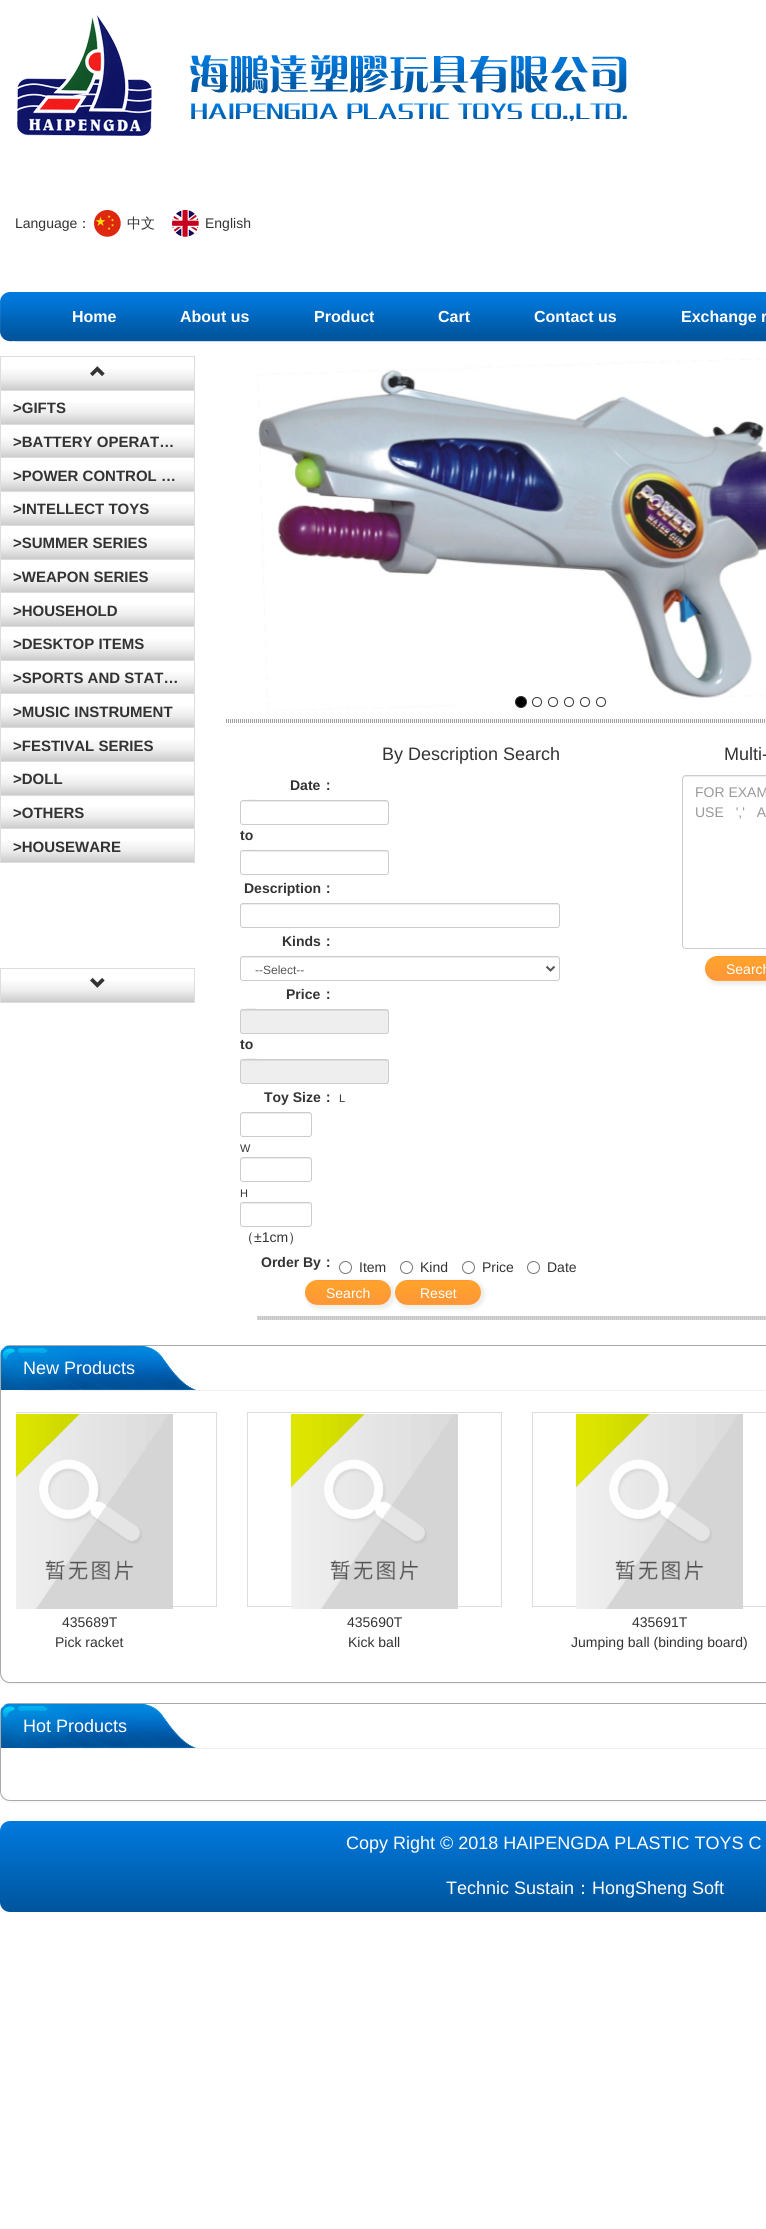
#include <cairo.h>
#include <math.h>
#include <stddef.h>


static void spaced_text(cairo_t *cr, double x, double y, const char *s, double letter, double word) {
    cairo_move_to(cr, x, y);
    while (*s) {
        char ch[5] = {0};
        int n = 0;
        do ch[n++] = *s++; while ((*s & 0xC0) == 0x80);
        cairo_show_text(cr, ch);
        cairo_rel_move_to(cr, letter + word * (*ch == ' '), 0);
    }
}

static void round_rect(cairo_t *cr, double x, double y, double w, double h, double r) {
    cairo_new_sub_path(cr);
    cairo_arc(cr, x + w - r, y + h - r, r, 0, M_PI / 2);
    cairo_arc(cr, x + r, y + h - r, r, M_PI / 2, M_PI);
    cairo_arc(cr, x + r, y + r, r, M_PI, 1.5 * M_PI);
    cairo_arc(cr, x + w - r, y + r, r, 1.5 * M_PI, 2 * M_PI);
    cairo_close_path(cr);
}

static void shadow(cairo_t *cr, double x, double y, double w, double h, double r, double blur, double alpha) {
    cairo_push_group_with_content(cr, CAIRO_CONTENT_ALPHA);
    cairo_set_operator(cr, CAIRO_OPERATOR_SOURCE);
    for (int i = 15; i >= -15 && fmin(w, h) + blur * i / 3 > 0; i -= 2) {
        double e = blur * i / 6;
        cairo_set_source_rgba(cr, 0, 0, 0, alpha * erfc((i - 1) / 8.5) / 2);
        round_rect(cr, x - e, y - e, w + 2 * e, h + 2 * e, fmax(0, fmin(r + e + blur * .6, fmin(w, h) / 2 + e)));
        cairo_fill(cr);
    }
    cairo_pattern_t *soft = cairo_pop_group(cr);
    cairo_mask(cr, soft);
    cairo_pattern_destroy(soft);
}

static void picture(cairo_t *cr, const char *path, double x, double y, double w, double h) {
    cairo_surface_t *image = cairo_image_surface_create_from_png(path);
    cairo_save(cr);
    cairo_set_source_surface(cr, image, x, y);
    cairo_rectangle(cr, x, y, w, h);
    cairo_fill(cr);
    cairo_restore(cr);
    cairo_surface_destroy(image);
}

int main(void) {
    cairo_surface_t *surface = cairo_image_surface_create(CAIRO_FORMAT_RGB24, 766, 2229);
    cairo_t *cr = cairo_create(surface);
    cairo_font_options_t *options = cairo_font_options_create();
    cairo_font_options_set_hint_metrics(options, CAIRO_HINT_METRICS_OFF);
    cairo_font_options_set_hint_style(options, CAIRO_HINT_STYLE_NONE);
    cairo_set_font_options(cr, options);
    cairo_set_miter_limit(cr, 4);
    cairo_pattern_t *gradient;
    cairo_set_source_rgb(cr, 1, 1, 1);
    cairo_paint(cr);
    picture(cr, "img1.png", 17, 15, 610, 122);
    cairo_select_font_face(cr, "Liberation Sans", CAIRO_FONT_SLANT_NORMAL, CAIRO_FONT_WEIGHT_NORMAL);
    cairo_set_font_size(cr, 14);
    cairo_set_source_rgb(cr, 0.2, 0.2, 0.2);
    cairo_move_to(cr, 15, 228);
    cairo_show_text(cr, "Language");
    cairo_select_font_face(cr, "WenQuanYi Zen Hei Medium", CAIRO_FONT_SLANT_NORMAL, CAIRO_FONT_WEIGHT_NORMAL);
    cairo_move_to(cr, 77, 228);
    cairo_show_text(cr, "：");
    picture(cr, "img2.png", 94, 210, 28, 27);
    cairo_move_to(cr, 127, 228);
    cairo_show_text(cr, "中文");
    picture(cr, "img3.png", 172, 210, 28, 27);
    cairo_select_font_face(cr, "Liberation Sans", CAIRO_FONT_SLANT_NORMAL, CAIRO_FONT_WEIGHT_NORMAL);
    cairo_move_to(cr, 205, 228);
    cairo_show_text(cr, "English");
    picture(cr, "img4.png", 13, 292, 753, 50);
    picture(cr, "img5.png", 0, 292, 13, 50);
    cairo_select_font_face(cr, "Liberation Sans", CAIRO_FONT_SLANT_NORMAL, CAIRO_FONT_WEIGHT_BOLD);
    cairo_set_font_size(cr, 16);
    cairo_set_source_rgb(cr, 1, 1, 1);
    cairo_move_to(cr, 72, 322);
    cairo_show_text(cr, "Home");
    cairo_move_to(cr, 180, 322);
    cairo_show_text(cr, "About us");
    cairo_move_to(cr, 314, 322);
    cairo_show_text(cr, "Product");
    cairo_move_to(cr, 438, 322);
    cairo_show_text(cr, "Cart");
    cairo_move_to(cr, 534, 322);
    cairo_show_text(cr, "Contact us");
    cairo_move_to(cr, 681, 322);
    cairo_show_text(cr, "Exchange r");
    gradient = cairo_pattern_create_linear(98, 357, 98, 390);
    cairo_pattern_add_color_stop_rgba(gradient, 0.3, 1, 1, 1, 1);
    cairo_pattern_add_color_stop_rgba(gradient, 0.65, 0.933, 0.933, 0.933, 1);
    cairo_pattern_add_color_stop_rgba(gradient, 1, 0.8, 0.8, 0.8, 1);
    cairo_set_source(cr, gradient);
    cairo_pattern_destroy(gradient);
    cairo_rectangle(cr, 1, 369, 193, 21);
    cairo_fill(cr);
    cairo_rectangle(cr, 0.5, 356.5, 194, 34);
    cairo_set_source_rgb(cr, 0.867, 0.867, 0.867);
    cairo_set_line_width(cr, 1);
    cairo_stroke(cr);
    picture(cr, "img6.png", 90, 366, 15, 11);
    gradient = cairo_pattern_create_linear(98, 391, 98, 424);
    cairo_pattern_add_color_stop_rgba(gradient, 0.3, 1, 1, 1, 1);
    cairo_pattern_add_color_stop_rgba(gradient, 0.65, 0.933, 0.933, 0.933, 1);
    cairo_pattern_add_color_stop_rgba(gradient, 1, 0.8, 0.8, 0.8, 1);
    cairo_set_source(cr, gradient);
    cairo_pattern_destroy(gradient);
    cairo_rectangle(cr, 1, 403, 193, 21);
    cairo_fill(cr);
    cairo_rectangle(cr, 0.5, 390.5, 194, 34);
    cairo_set_source_rgb(cr, 0.867, 0.867, 0.867);
    cairo_stroke(cr);
    cairo_set_font_size(cr, 15);
    cairo_set_source_rgb(cr, 0.2, 0.2, 0.2);
    cairo_move_to(cr, 13, 413);
    cairo_show_text(cr, ">GIFTS");
    gradient = cairo_pattern_create_linear(98, 425, 98, 457);
    cairo_pattern_add_color_stop_rgba(gradient, 0.3, 1, 1, 1, 1);
    cairo_pattern_add_color_stop_rgba(gradient, 0.65, 0.933, 0.933, 0.933, 1);
    cairo_pattern_add_color_stop_rgba(gradient, 1, 0.8, 0.8, 0.8, 1);
    cairo_set_source(cr, gradient);
    cairo_pattern_destroy(gradient);
    cairo_rectangle(cr, 1, 436, 193, 21);
    cairo_fill(cr);
    cairo_rectangle(cr, 0.5, 424.5, 194, 33);
    cairo_set_source_rgb(cr, 0.867, 0.867, 0.867);
    cairo_stroke(cr);
    cairo_set_source_rgb(cr, 0.2, 0.2, 0.2);
    cairo_move_to(cr, 13, 447);
    cairo_show_text(cr, ">BATTERY OPERAT…");
    gradient = cairo_pattern_create_linear(98, 458, 98, 491);
    cairo_pattern_add_color_stop_rgba(gradient, 0.3, 1, 1, 1, 1);
    cairo_pattern_add_color_stop_rgba(gradient, 0.65, 0.933, 0.933, 0.933, 1);
    cairo_pattern_add_color_stop_rgba(gradient, 1, 0.8, 0.8, 0.8, 1);
    cairo_set_source(cr, gradient);
    cairo_pattern_destroy(gradient);
    cairo_rectangle(cr, 1, 470, 193, 21);
    cairo_fill(cr);
    cairo_rectangle(cr, 0.5, 457.5, 194, 34);
    cairo_set_source_rgb(cr, 0.867, 0.867, 0.867);
    cairo_stroke(cr);
    cairo_set_source_rgb(cr, 0.2, 0.2, 0.2);
    cairo_move_to(cr, 13, 481);
    cairo_show_text(cr, ">POWER CONTROL …");
    gradient = cairo_pattern_create_linear(98, 492, 98, 525);
    cairo_pattern_add_color_stop_rgba(gradient, 0.3, 1, 1, 1, 1);
    cairo_pattern_add_color_stop_rgba(gradient, 0.65, 0.933, 0.933, 0.933, 1);
    cairo_pattern_add_color_stop_rgba(gradient, 1, 0.8, 0.8, 0.8, 1);
    cairo_set_source(cr, gradient);
    cairo_pattern_destroy(gradient);
    cairo_rectangle(cr, 1, 504, 193, 21);
    cairo_fill(cr);
    cairo_rectangle(cr, 0.5, 491.5, 194, 34);
    cairo_set_source_rgb(cr, 0.867, 0.867, 0.867);
    cairo_stroke(cr);
    cairo_set_source_rgb(cr, 0.2, 0.2, 0.2);
    cairo_move_to(cr, 13, 514);
    cairo_show_text(cr, ">INTELLECT TOYS");
    gradient = cairo_pattern_create_linear(98, 526, 98, 559);
    cairo_pattern_add_color_stop_rgba(gradient, 0.3, 1, 1, 1, 1);
    cairo_pattern_add_color_stop_rgba(gradient, 0.65, 0.933, 0.933, 0.933, 1);
    cairo_pattern_add_color_stop_rgba(gradient, 1, 0.8, 0.8, 0.8, 1);
    cairo_set_source(cr, gradient);
    cairo_pattern_destroy(gradient);
    cairo_rectangle(cr, 1, 538, 193, 21);
    cairo_fill(cr);
    cairo_rectangle(cr, 0.5, 525.5, 194, 34);
    cairo_set_source_rgb(cr, 0.867, 0.867, 0.867);
    cairo_stroke(cr);
    cairo_set_source_rgb(cr, 0.2, 0.2, 0.2);
    cairo_move_to(cr, 13, 548);
    cairo_show_text(cr, ">SUMMER SERIES");
    gradient = cairo_pattern_create_linear(98, 560, 98, 592);
    cairo_pattern_add_color_stop_rgba(gradient, 0.3, 1, 1, 1, 1);
    cairo_pattern_add_color_stop_rgba(gradient, 0.65, 0.933, 0.933, 0.933, 1);
    cairo_pattern_add_color_stop_rgba(gradient, 1, 0.8, 0.8, 0.8, 1);
    cairo_set_source(cr, gradient);
    cairo_pattern_destroy(gradient);
    cairo_rectangle(cr, 1, 571, 193, 21);
    cairo_fill(cr);
    cairo_rectangle(cr, 0.5, 559.5, 194, 33);
    cairo_set_source_rgb(cr, 0.867, 0.867, 0.867);
    cairo_stroke(cr);
    cairo_set_source_rgb(cr, 0.2, 0.2, 0.2);
    cairo_move_to(cr, 13, 582);
    cairo_show_text(cr, ">WEAPON SERIES");
    gradient = cairo_pattern_create_linear(98, 593, 98, 626);
    cairo_pattern_add_color_stop_rgba(gradient, 0.3, 1, 1, 1, 1);
    cairo_pattern_add_color_stop_rgba(gradient, 0.65, 0.933, 0.933, 0.933, 1);
    cairo_pattern_add_color_stop_rgba(gradient, 1, 0.8, 0.8, 0.8, 1);
    cairo_set_source(cr, gradient);
    cairo_pattern_destroy(gradient);
    cairo_rectangle(cr, 1, 605, 193, 21);
    cairo_fill(cr);
    cairo_rectangle(cr, 0.5, 592.5, 194, 34);
    cairo_set_source_rgb(cr, 0.867, 0.867, 0.867);
    cairo_stroke(cr);
    cairo_set_source_rgb(cr, 0.2, 0.2, 0.2);
    cairo_move_to(cr, 13, 616);
    cairo_show_text(cr, ">HOUSEHOLD");
    gradient = cairo_pattern_create_linear(98, 627, 98, 660);
    cairo_pattern_add_color_stop_rgba(gradient, 0.3, 1, 1, 1, 1);
    cairo_pattern_add_color_stop_rgba(gradient, 0.65, 0.933, 0.933, 0.933, 1);
    cairo_pattern_add_color_stop_rgba(gradient, 1, 0.8, 0.8, 0.8, 1);
    cairo_set_source(cr, gradient);
    cairo_pattern_destroy(gradient);
    cairo_rectangle(cr, 1, 639, 193, 21);
    cairo_fill(cr);
    cairo_rectangle(cr, 0.5, 626.5, 194, 34);
    cairo_set_source_rgb(cr, 0.867, 0.867, 0.867);
    cairo_stroke(cr);
    cairo_set_source_rgb(cr, 0.2, 0.2, 0.2);
    cairo_move_to(cr, 13, 649);
    cairo_show_text(cr, ">DESKTOP ITEMS");
    gradient = cairo_pattern_create_linear(98, 661, 98, 693);
    cairo_pattern_add_color_stop_rgba(gradient, 0.3, 1, 1, 1, 1);
    cairo_pattern_add_color_stop_rgba(gradient, 0.65, 0.933, 0.933, 0.933, 1);
    cairo_pattern_add_color_stop_rgba(gradient, 1, 0.8, 0.8, 0.8, 1);
    cairo_set_source(cr, gradient);
    cairo_pattern_destroy(gradient);
    cairo_rectangle(cr, 1, 672, 193, 21);
    cairo_fill(cr);
    cairo_rectangle(cr, 0.5, 660.5, 194, 33);
    cairo_set_source_rgb(cr, 0.867, 0.867, 0.867);
    cairo_stroke(cr);
    cairo_set_source_rgb(cr, 0.2, 0.2, 0.2);
    cairo_move_to(cr, 13, 683);
    cairo_show_text(cr, ">SPORTS AND STAT…");
    gradient = cairo_pattern_create_linear(98, 694, 98, 727);
    cairo_pattern_add_color_stop_rgba(gradient, 0.3, 1, 1, 1, 1);
    cairo_pattern_add_color_stop_rgba(gradient, 0.65, 0.933, 0.933, 0.933, 1);
    cairo_pattern_add_color_stop_rgba(gradient, 1, 0.8, 0.8, 0.8, 1);
    cairo_set_source(cr, gradient);
    cairo_pattern_destroy(gradient);
    cairo_rectangle(cr, 1, 706, 193, 21);
    cairo_fill(cr);
    cairo_rectangle(cr, 0.5, 693.5, 194, 34);
    cairo_set_source_rgb(cr, 0.867, 0.867, 0.867);
    cairo_stroke(cr);
    cairo_set_source_rgb(cr, 0.2, 0.2, 0.2);
    cairo_move_to(cr, 13, 717);
    cairo_show_text(cr, ">MUSIC INSTRUMENT");
    gradient = cairo_pattern_create_linear(98, 728, 98, 761);
    cairo_pattern_add_color_stop_rgba(gradient, 0.3, 1, 1, 1, 1);
    cairo_pattern_add_color_stop_rgba(gradient, 0.65, 0.933, 0.933, 0.933, 1);
    cairo_pattern_add_color_stop_rgba(gradient, 1, 0.8, 0.8, 0.8, 1);
    cairo_set_source(cr, gradient);
    cairo_pattern_destroy(gradient);
    cairo_rectangle(cr, 1, 740, 193, 21);
    cairo_fill(cr);
    cairo_rectangle(cr, 0.5, 727.5, 194, 34);
    cairo_set_source_rgb(cr, 0.867, 0.867, 0.867);
    cairo_stroke(cr);
    cairo_set_source_rgb(cr, 0.2, 0.2, 0.2);
    cairo_move_to(cr, 13, 751);
    cairo_show_text(cr, ">FESTIVAL SERIES");
    gradient = cairo_pattern_create_linear(98, 762, 98, 795);
    cairo_pattern_add_color_stop_rgba(gradient, 0.3, 1, 1, 1, 1);
    cairo_pattern_add_color_stop_rgba(gradient, 0.65, 0.933, 0.933, 0.933, 1);
    cairo_pattern_add_color_stop_rgba(gradient, 1, 0.8, 0.8, 0.8, 1);
    cairo_set_source(cr, gradient);
    cairo_pattern_destroy(gradient);
    cairo_rectangle(cr, 1, 774, 193, 21);
    cairo_fill(cr);
    cairo_rectangle(cr, 0.5, 761.5, 194, 34);
    cairo_set_source_rgb(cr, 0.867, 0.867, 0.867);
    cairo_stroke(cr);
    cairo_set_source_rgb(cr, 0.2, 0.2, 0.2);
    cairo_move_to(cr, 13, 784);
    cairo_show_text(cr, ">DOLL");
    gradient = cairo_pattern_create_linear(98, 796, 98, 828);
    cairo_pattern_add_color_stop_rgba(gradient, 0.3, 1, 1, 1, 1);
    cairo_pattern_add_color_stop_rgba(gradient, 0.65, 0.933, 0.933, 0.933, 1);
    cairo_pattern_add_color_stop_rgba(gradient, 1, 0.8, 0.8, 0.8, 1);
    cairo_set_source(cr, gradient);
    cairo_pattern_destroy(gradient);
    cairo_rectangle(cr, 1, 807, 193, 21);
    cairo_fill(cr);
    cairo_rectangle(cr, 0.5, 795.5, 194, 33);
    cairo_set_source_rgb(cr, 0.867, 0.867, 0.867);
    cairo_stroke(cr);
    cairo_set_source_rgb(cr, 0.2, 0.2, 0.2);
    cairo_move_to(cr, 13, 818);
    cairo_show_text(cr, ">OTHERS");
    gradient = cairo_pattern_create_linear(98, 829, 98, 862);
    cairo_pattern_add_color_stop_rgba(gradient, 0.3, 1, 1, 1, 1);
    cairo_pattern_add_color_stop_rgba(gradient, 0.65, 0.933, 0.933, 0.933, 1);
    cairo_pattern_add_color_stop_rgba(gradient, 1, 0.8, 0.8, 0.8, 1);
    cairo_set_source(cr, gradient);
    cairo_pattern_destroy(gradient);
    cairo_rectangle(cr, 1, 841, 193, 21);
    cairo_fill(cr);
    cairo_rectangle(cr, 0.5, 828.5, 194, 34);
    cairo_set_source_rgb(cr, 0.867, 0.867, 0.867);
    cairo_stroke(cr);
    cairo_set_source_rgb(cr, 0.2, 0.2, 0.2);
    cairo_move_to(cr, 13, 852);
    cairo_show_text(cr, ">HOUSEWARE");
    gradient = cairo_pattern_create_linear(98, 969, 98, 1002);
    cairo_pattern_add_color_stop_rgba(gradient, 0.3, 1, 1, 1, 1);
    cairo_pattern_add_color_stop_rgba(gradient, 0.65, 0.933, 0.933, 0.933, 1);
    cairo_pattern_add_color_stop_rgba(gradient, 1, 0.8, 0.8, 0.8, 1);
    cairo_set_source(cr, gradient);
    cairo_pattern_destroy(gradient);
    cairo_rectangle(cr, 1, 981, 193, 21);
    cairo_fill(cr);
    cairo_rectangle(cr, 0.5, 968.5, 194, 34);
    cairo_set_source_rgb(cr, 0.867, 0.867, 0.867);
    cairo_stroke(cr);
    picture(cr, "img7.png", 90, 977, 15, 11);
    picture(cr, "img8.png", 226, 719, 540, 4);
    picture(cr, "img9.png", 257, 358, 509, 353);
    cairo_set_source_rgba(cr, 1, 1, 1, 0.5);
    cairo_new_path(cr);
    cairo_move_to(cr, 281, 535);
    cairo_line_to(cr, 275, 541);
    cairo_line_to(cr, 281, 547);
    cairo_line_to(cr, 277.5, 550);
    cairo_line_to(cr, 268.5, 541);
    cairo_line_to(cr, 277.5, 531.5);
    cairo_close_path(cr);
    cairo_fill(cr);
    cairo_set_source_rgb(cr, 0, 0, 0);
    cairo_arc(cr, 521, 702, 5.5, 0, 2 * M_PI);
    cairo_fill_preserve(cr);
    cairo_set_source_rgb(cr, 0.2, 0.2, 0.2);
    cairo_stroke(cr);
    cairo_arc(cr, 537, 702, 4.5, 0, 2 * M_PI);
    cairo_stroke(cr);
    cairo_arc(cr, 553, 702, 4.5, 0, 2 * M_PI);
    cairo_stroke(cr);
    cairo_arc(cr, 569, 702, 4.5, 0, 2 * M_PI);
    cairo_stroke(cr);
    cairo_arc(cr, 585, 702, 4.5, 0, 2 * M_PI);
    cairo_stroke(cr);
    cairo_arc(cr, 601, 702, 4.5, 0, 2 * M_PI);
    cairo_stroke(cr);
    cairo_select_font_face(cr, "Liberation Sans", CAIRO_FONT_SLANT_NORMAL, CAIRO_FONT_WEIGHT_NORMAL);
    cairo_set_font_size(cr, 18);
    cairo_move_to(cr, 382, 760);
    cairo_show_text(cr, "By Description Search");
    cairo_select_font_face(cr, "Liberation Sans", CAIRO_FONT_SLANT_NORMAL, CAIRO_FONT_WEIGHT_BOLD);
    cairo_set_font_size(cr, 14);
    cairo_move_to(cr, 290, 790);
    cairo_show_text(cr, "Date");
    cairo_select_font_face(cr, "WenQuanYi Zen Hei", CAIRO_FONT_SLANT_NORMAL, CAIRO_FONT_WEIGHT_BOLD);
    cairo_move_to(cr, 321, 790);
    cairo_show_text(cr, "：");
    cairo_set_source_rgb(cr, 0.925, 0.925, 0.925);
    cairo_new_path(cr);
    cairo_move_to(cr, 243, 802);
    cairo_line_to(cr, 386, 802);
    cairo_curve_to(cr, 387, 802, 388, 803, 388, 804);
    cairo_curve_to(cr, 388, 803, 388, 802, 387, 801);
    cairo_line_to(cr, 267, 801);
    cairo_curve_to(cr, 263, 801, 241, 796, 241, 804);
    cairo_curve_to(cr, 241, 803, 242, 802, 243, 802);
    cairo_close_path(cr);
    cairo_fill(cr);
    round_rect(cr, 240.5, 800.5, 148, 24, 2.5);
    cairo_set_source_rgb(cr, 0.8, 0.8, 0.8);
    cairo_stroke(cr);
    cairo_select_font_face(cr, "Liberation Sans", CAIRO_FONT_SLANT_NORMAL, CAIRO_FONT_WEIGHT_BOLD);
    cairo_set_source_rgb(cr, 0.2, 0.2, 0.2);
    cairo_move_to(cr, 240, 840);
    cairo_show_text(cr, "to");
    cairo_set_source_rgb(cr, 0.925, 0.925, 0.925);
    cairo_new_path(cr);
    cairo_move_to(cr, 243, 852);
    cairo_line_to(cr, 386, 852);
    cairo_curve_to(cr, 387, 852, 388, 853, 388, 854);
    cairo_curve_to(cr, 388, 853, 388, 852, 387, 851);
    cairo_line_to(cr, 267, 851);
    cairo_curve_to(cr, 263, 851, 241, 846, 241, 854);
    cairo_curve_to(cr, 241, 853, 242, 852, 243, 852);
    cairo_close_path(cr);
    cairo_fill(cr);
    round_rect(cr, 240.5, 850.5, 148, 24, 2.5);
    cairo_set_source_rgb(cr, 0.8, 0.8, 0.8);
    cairo_stroke(cr);
    cairo_set_source_rgb(cr, 0.2, 0.2, 0.2);
    cairo_move_to(cr, 244, 893);
    cairo_show_text(cr, "Description");
    cairo_select_font_face(cr, "WenQuanYi Zen Hei", CAIRO_FONT_SLANT_NORMAL, CAIRO_FONT_WEIGHT_BOLD);
    cairo_move_to(cr, 321, 893);
    cairo_show_text(cr, "：");
    cairo_set_source_rgb(cr, 0.925, 0.925, 0.925);
    cairo_new_path(cr);
    cairo_move_to(cr, 243, 905);
    cairo_line_to(cr, 557, 905);
    cairo_curve_to(cr, 558, 905, 559, 906, 559, 907);
    cairo_curve_to(cr, 559, 906, 559, 904, 557, 904);
    cairo_line_to(cr, 242, 904);
    cairo_line_to(cr, 241, 905);
    cairo_line_to(cr, 241, 907);
    cairo_curve_to(cr, 241, 906, 242, 905, 243, 905);
    cairo_close_path(cr);
    cairo_fill(cr);
    round_rect(cr, 240.5, 903.5, 319, 24, 2.5);
    cairo_set_source_rgb(cr, 0.8, 0.8, 0.8);
    cairo_stroke(cr);
    cairo_select_font_face(cr, "Liberation Sans", CAIRO_FONT_SLANT_NORMAL, CAIRO_FONT_WEIGHT_BOLD);
    cairo_set_source_rgb(cr, 0.2, 0.2, 0.2);
    cairo_move_to(cr, 282, 946);
    cairo_show_text(cr, "Kinds");
    cairo_select_font_face(cr, "WenQuanYi Zen Hei", CAIRO_FONT_SLANT_NORMAL, CAIRO_FONT_WEIGHT_BOLD);
    cairo_move_to(cr, 321, 946);
    cairo_show_text(cr, "：");
    cairo_set_source_rgb(cr, 0.925, 0.925, 0.925);
    cairo_new_path(cr);
    cairo_move_to(cr, 243, 958);
    cairo_line_to(cr, 557, 958);
    cairo_curve_to(cr, 558, 958, 559, 959, 559, 960);
    cairo_curve_to(cr, 559, 959, 559, 957, 557, 957);
    cairo_line_to(cr, 242, 957);
    cairo_line_to(cr, 241, 958);
    cairo_line_to(cr, 241, 960);
    cairo_curve_to(cr, 241, 959, 242, 958, 243, 958);
    cairo_close_path(cr);
    cairo_fill(cr);
    round_rect(cr, 240.5, 956.5, 319, 24, 2.5);
    cairo_set_source_rgb(cr, 0.8, 0.8, 0.8);
    cairo_stroke(cr);
    cairo_new_path(cr);
    cairo_move_to(cr, 546.5, 966.5);
    cairo_line_to(cr, 550.5, 970.5);
    cairo_line_to(cr, 554.5, 966.5);
    cairo_set_source_rgb(cr, 0.333, 0.333, 0.333);
    cairo_set_line_width(cr, 2);
    cairo_stroke(cr);
    cairo_select_font_face(cr, "Liberation Sans", CAIRO_FONT_SLANT_NORMAL, CAIRO_FONT_WEIGHT_NORMAL);
    cairo_set_font_size(cr, 12);
    cairo_move_to(cr, 255, 974);
    cairo_show_text(cr, "--Select--");
    cairo_select_font_face(cr, "Liberation Sans", CAIRO_FONT_SLANT_NORMAL, CAIRO_FONT_WEIGHT_BOLD);
    cairo_set_font_size(cr, 14);
    cairo_set_source_rgb(cr, 0.2, 0.2, 0.2);
    cairo_move_to(cr, 286, 999);
    cairo_show_text(cr, "Price");
    cairo_select_font_face(cr, "WenQuanYi Zen Hei", CAIRO_FONT_SLANT_NORMAL, CAIRO_FONT_WEIGHT_BOLD);
    cairo_move_to(cr, 321, 999);
    cairo_show_text(cr, "：");
    cairo_set_source_rgb(cr, 0.933, 0.933, 0.933);
    round_rect(cr, 240, 1009, 149, 25, 3);
    cairo_fill(cr);
    cairo_set_source_rgb(cr, 0.863, 0.863, 0.863);
    cairo_new_path(cr);
    cairo_move_to(cr, 243, 1011);
    cairo_line_to(cr, 386, 1011);
    cairo_curve_to(cr, 387, 1011, 388, 1012, 388, 1013);
    cairo_curve_to(cr, 388, 1012, 388, 1011, 387, 1010);
    cairo_line_to(cr, 267, 1010);
    cairo_curve_to(cr, 263, 1010, 241, 1005, 241, 1013);
    cairo_curve_to(cr, 241, 1012, 242, 1011, 243, 1011);
    cairo_close_path(cr);
    cairo_fill(cr);
    round_rect(cr, 240.5, 1009.5, 148, 24, 2.5);
    cairo_set_source_rgb(cr, 0.8, 0.8, 0.8);
    cairo_set_line_width(cr, 1);
    cairo_stroke(cr);
    cairo_select_font_face(cr, "Liberation Sans", CAIRO_FONT_SLANT_NORMAL, CAIRO_FONT_WEIGHT_BOLD);
    cairo_set_source_rgb(cr, 0.2, 0.2, 0.2);
    cairo_move_to(cr, 240, 1049);
    cairo_show_text(cr, "to");
    cairo_set_source_rgb(cr, 0.933, 0.933, 0.933);
    round_rect(cr, 240, 1059, 149, 25, 3);
    cairo_fill(cr);
    cairo_set_source_rgb(cr, 0.863, 0.863, 0.863);
    cairo_new_path(cr);
    cairo_move_to(cr, 243, 1061);
    cairo_line_to(cr, 386, 1061);
    cairo_curve_to(cr, 387, 1061, 388, 1062, 388, 1063);
    cairo_curve_to(cr, 388, 1062, 388, 1061, 387, 1060);
    cairo_line_to(cr, 267, 1060);
    cairo_curve_to(cr, 263, 1060, 241, 1055, 241, 1063);
    cairo_curve_to(cr, 241, 1062, 242, 1061, 243, 1061);
    cairo_close_path(cr);
    cairo_fill(cr);
    round_rect(cr, 240.5, 1059.5, 148, 24, 2.5);
    cairo_set_source_rgb(cr, 0.8, 0.8, 0.8);
    cairo_stroke(cr);
    cairo_set_source_rgb(cr, 0.2, 0.2, 0.2);
    cairo_move_to(cr, 264, 1102);
    cairo_show_text(cr, "Toy Size");
    cairo_select_font_face(cr, "WenQuanYi Zen Hei", CAIRO_FONT_SLANT_NORMAL, CAIRO_FONT_WEIGHT_BOLD);
    cairo_move_to(cr, 321, 1102);
    cairo_show_text(cr, "：");
    cairo_select_font_face(cr, "Liberation Sans", CAIRO_FONT_SLANT_NORMAL, CAIRO_FONT_WEIGHT_NORMAL);
    cairo_set_font_size(cr, 11);
    cairo_move_to(cr, 339, 1102);
    cairo_show_text(cr, "L");
    cairo_set_source_rgb(cr, 0.925, 0.925, 0.925);
    cairo_new_path(cr);
    cairo_move_to(cr, 243, 1114);
    cairo_line_to(cr, 309, 1114);
    cairo_curve_to(cr, 310, 1114, 311, 1115, 311, 1116);
    cairo_curve_to(cr, 311, 1110, 302, 1113, 298, 1113);
    cairo_line_to(cr, 254, 1113);
    cairo_curve_to(cr, 250, 1113, 241, 1110, 241, 1116);
    cairo_curve_to(cr, 241, 1115, 242, 1114, 243, 1114);
    cairo_close_path(cr);
    cairo_fill(cr);
    round_rect(cr, 240.5, 1112.5, 71, 24, 2.5);
    cairo_set_source_rgb(cr, 0.8, 0.8, 0.8);
    cairo_stroke(cr);
    cairo_set_source_rgb(cr, 0.2, 0.2, 0.2);
    cairo_move_to(cr, 240, 1152);
    cairo_show_text(cr, "W");
    cairo_set_source_rgb(cr, 0.925, 0.925, 0.925);
    cairo_new_path(cr);
    cairo_move_to(cr, 243, 1159);
    cairo_line_to(cr, 309, 1159);
    cairo_curve_to(cr, 310, 1159, 311, 1160, 311, 1161);
    cairo_curve_to(cr, 311, 1155, 302, 1158, 298, 1158);
    cairo_line_to(cr, 254, 1158);
    cairo_curve_to(cr, 250, 1158, 241, 1155, 241, 1161);
    cairo_curve_to(cr, 241, 1160, 242, 1159, 243, 1159);
    cairo_close_path(cr);
    cairo_fill(cr);
    round_rect(cr, 240.5, 1157.5, 71, 24, 2.5);
    cairo_set_source_rgb(cr, 0.8, 0.8, 0.8);
    cairo_stroke(cr);
    cairo_set_source_rgb(cr, 0.2, 0.2, 0.2);
    cairo_move_to(cr, 240, 1197);
    cairo_show_text(cr, "H");
    cairo_set_source_rgb(cr, 0.925, 0.925, 0.925);
    cairo_new_path(cr);
    cairo_move_to(cr, 243, 1204);
    cairo_line_to(cr, 309, 1204);
    cairo_curve_to(cr, 310, 1204, 311, 1205, 311, 1206);
    cairo_curve_to(cr, 311, 1200, 302, 1203, 298, 1203);
    cairo_line_to(cr, 254, 1203);
    cairo_curve_to(cr, 250, 1203, 241, 1200, 241, 1206);
    cairo_curve_to(cr, 241, 1205, 242, 1204, 243, 1204);
    cairo_close_path(cr);
    cairo_fill(cr);
    round_rect(cr, 240.5, 1202.5, 71, 24, 2.5);
    cairo_set_source_rgb(cr, 0.8, 0.8, 0.8);
    cairo_stroke(cr);
    cairo_select_font_face(cr, "WenQuanYi Zen Hei Medium", CAIRO_FONT_SLANT_NORMAL, CAIRO_FONT_WEIGHT_NORMAL);
    cairo_set_font_size(cr, 14);
    cairo_set_source_rgb(cr, 0.2, 0.2, 0.2);
    cairo_move_to(cr, 240, 1242);
    cairo_show_text(cr, "（");
    cairo_select_font_face(cr, "Liberation Sans", CAIRO_FONT_SLANT_NORMAL, CAIRO_FONT_WEIGHT_NORMAL);
    cairo_move_to(cr, 254, 1242);
    cairo_show_text(cr, "±1cm");
    cairo_select_font_face(cr, "WenQuanYi Zen Hei Medium", CAIRO_FONT_SLANT_NORMAL, CAIRO_FONT_WEIGHT_NORMAL);
    cairo_move_to(cr, 288, 1242);
    cairo_show_text(cr, "）");
    cairo_select_font_face(cr, "Liberation Sans", CAIRO_FONT_SLANT_NORMAL, CAIRO_FONT_WEIGHT_BOLD);
    cairo_move_to(cr, 261, 1267);
    cairo_show_text(cr, "Order By");
    cairo_select_font_face(cr, "WenQuanYi Zen Hei", CAIRO_FONT_SLANT_NORMAL, CAIRO_FONT_WEIGHT_BOLD);
    cairo_move_to(cr, 321, 1267);
    cairo_show_text(cr, "：");
    cairo_new_path(cr);
    cairo_arc(cr, 345.5, 1267.5, 6, 0, 2 * M_PI);
    cairo_set_source_rgb(cr, 0.463, 0.463, 0.463);
    cairo_stroke(cr);
    cairo_select_font_face(cr, "Liberation Sans", CAIRO_FONT_SLANT_NORMAL, CAIRO_FONT_WEIGHT_NORMAL);
    cairo_set_source_rgb(cr, 0.2, 0.2, 0.2);
    cairo_move_to(cr, 359, 1272);
    cairo_show_text(cr, "Item");
    cairo_new_path(cr);
    cairo_arc(cr, 406.5, 1267.5, 6, 0, 2 * M_PI);
    cairo_set_source_rgb(cr, 0.463, 0.463, 0.463);
    cairo_stroke(cr);
    cairo_set_source_rgb(cr, 0.2, 0.2, 0.2);
    cairo_move_to(cr, 420, 1272);
    cairo_show_text(cr, "Kind");
    cairo_new_path(cr);
    cairo_arc(cr, 468.5, 1267.5, 6, 0, 2 * M_PI);
    cairo_set_source_rgb(cr, 0.463, 0.463, 0.463);
    cairo_stroke(cr);
    cairo_set_source_rgb(cr, 0.2, 0.2, 0.2);
    cairo_move_to(cr, 482, 1272);
    cairo_show_text(cr, "Price");
    cairo_new_path(cr);
    cairo_arc(cr, 533.5, 1267.5, 6, 0, 2 * M_PI);
    cairo_set_source_rgb(cr, 0.463, 0.463, 0.463);
    cairo_stroke(cr);
    cairo_set_source_rgb(cr, 0.2, 0.2, 0.2);
    cairo_move_to(cr, 547, 1272);
    cairo_show_text(cr, "Date");
    cairo_set_source_rgb(cr, 0.933, 0.933, 0.933);
    shadow(cr, 305, 1280, 90, 29, 14.5, 1.5, 1);
    cairo_save(cr);
    round_rect(cr, 305, 1280, 86, 25, 12.5);
    cairo_clip(cr);
    gradient = cairo_pattern_create_linear(348, 1258, 348, 1281);
    cairo_pattern_add_color_stop_rgba(gradient, 0, 1, 0.643, 0.169, 1);
    cairo_pattern_add_color_stop_rgba(gradient, 1, 1, 0.588, 0.22, 1);
    cairo_set_source(cr, gradient);
    cairo_pattern_destroy(gradient);
    cairo_rectangle(cr, 305, 1280, 86, 1);
    cairo_fill(cr);
    gradient = cairo_pattern_create_linear(348, 1281, 348, 1304);
    cairo_pattern_add_color_stop_rgba(gradient, 0, 1, 0.643, 0.169, 1);
    cairo_pattern_add_color_stop_rgba(gradient, 1, 1, 0.588, 0.22, 1);
    cairo_set_source(cr, gradient);
    cairo_pattern_destroy(gradient);
    cairo_rectangle(cr, 305, 1281, 86, 23);
    cairo_fill(cr);
    gradient = cairo_pattern_create_linear(348, 1304, 348, 1327);
    cairo_pattern_add_color_stop_rgba(gradient, 0, 1, 0.643, 0.169, 1);
    cairo_pattern_add_color_stop_rgba(gradient, 1, 1, 0.588, 0.22, 1);
    cairo_set_source(cr, gradient);
    cairo_pattern_destroy(gradient);
    cairo_rectangle(cr, 305, 1304, 86, 1);
    cairo_fill(cr);
    cairo_restore(cr);
    cairo_set_source_rgb(cr, 1, 1, 1);
    cairo_move_to(cr, 326, 1298);
    cairo_show_text(cr, "Search");
    cairo_set_source_rgb(cr, 0.933, 0.933, 0.933);
    shadow(cr, 395, 1280, 90, 29, 14.5, 1.5, 1);
    cairo_save(cr);
    round_rect(cr, 395, 1280, 86, 25, 12.5);
    cairo_clip(cr);
    gradient = cairo_pattern_create_linear(438, 1258, 438, 1281);
    cairo_pattern_add_color_stop_rgba(gradient, 0, 1, 0.643, 0.169, 1);
    cairo_pattern_add_color_stop_rgba(gradient, 1, 1, 0.588, 0.22, 1);
    cairo_set_source(cr, gradient);
    cairo_pattern_destroy(gradient);
    cairo_rectangle(cr, 395, 1280, 86, 1);
    cairo_fill(cr);
    gradient = cairo_pattern_create_linear(438, 1281, 438, 1304);
    cairo_pattern_add_color_stop_rgba(gradient, 0, 1, 0.643, 0.169, 1);
    cairo_pattern_add_color_stop_rgba(gradient, 1, 1, 0.588, 0.22, 1);
    cairo_set_source(cr, gradient);
    cairo_pattern_destroy(gradient);
    cairo_rectangle(cr, 395, 1281, 86, 23);
    cairo_fill(cr);
    gradient = cairo_pattern_create_linear(438, 1304, 438, 1327);
    cairo_pattern_add_color_stop_rgba(gradient, 0, 1, 0.643, 0.169, 1);
    cairo_pattern_add_color_stop_rgba(gradient, 1, 1, 0.588, 0.22, 1);
    cairo_set_source(cr, gradient);
    cairo_pattern_destroy(gradient);
    cairo_rectangle(cr, 395, 1304, 86, 1);
    cairo_fill(cr);
    cairo_restore(cr);
    cairo_set_source_rgb(cr, 1, 1, 1);
    cairo_move_to(cr, 420, 1298);
    cairo_show_text(cr, "Reset");
    cairo_set_font_size(cr, 18);
    cairo_set_source_rgb(cr, 0.2, 0.2, 0.2);
    cairo_move_to(cr, 724, 760);
    cairo_show_text(cr, "Multi-");
    cairo_set_source_rgb(cr, 0.925, 0.925, 0.925);
    cairo_new_path(cr);
    cairo_move_to(cr, 686, 777);
    cairo_line_to(cr, 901, 777);
    cairo_curve_to(cr, 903, 777, 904, 778, 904, 780);
    cairo_line_to(cr, 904, 779);
    cairo_curve_to(cr, 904, 777, 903, 776, 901, 776);
    cairo_line_to(cr, 686, 776);
    cairo_curve_to(cr, 684, 776, 683, 777, 683, 779);
    cairo_line_to(cr, 683, 780);
    cairo_curve_to(cr, 683, 778, 684, 777, 686, 777);
    cairo_close_path(cr);
    cairo_fill(cr);
    round_rect(cr, 682.5, 775.5, 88, 173, 3.5);
    cairo_set_source_rgb(cr, 0.8, 0.8, 0.8);
    cairo_stroke(cr);
    cairo_set_font_size(cr, 14);
    cairo_set_source_rgb(cr, 0.6, 0.6, 0.6);
    cairo_move_to(cr, 695, 797);
    cairo_show_text(cr, "FOR EXAM");
    spaced_text(cr, 695, 817, "USE ',' A", 0, 8);
    cairo_set_source_rgb(cr, 0.933, 0.933, 0.933);
    shadow(cr, 705, 956, 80, 29, 14.5, 1.5, 1);
    cairo_save(cr);
    round_rect(cr, 705, 956, 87, 25, 12.5);
    cairo_clip(cr);
    gradient = cairo_pattern_create_linear(749, 934, 749, 957);
    cairo_pattern_add_color_stop_rgba(gradient, 0, 1, 0.643, 0.169, 1);
    cairo_pattern_add_color_stop_rgba(gradient, 1, 1, 0.588, 0.22, 1);
    cairo_set_source(cr, gradient);
    cairo_pattern_destroy(gradient);
    cairo_rectangle(cr, 705, 956, 61, 1);
    cairo_fill(cr);
    gradient = cairo_pattern_create_linear(749, 957, 749, 980);
    cairo_pattern_add_color_stop_rgba(gradient, 0, 1, 0.643, 0.169, 1);
    cairo_pattern_add_color_stop_rgba(gradient, 1, 1, 0.588, 0.22, 1);
    cairo_set_source(cr, gradient);
    cairo_pattern_destroy(gradient);
    cairo_rectangle(cr, 705, 957, 61, 23);
    cairo_fill(cr);
    gradient = cairo_pattern_create_linear(749, 980, 749, 1003);
    cairo_pattern_add_color_stop_rgba(gradient, 0, 1, 0.643, 0.169, 1);
    cairo_pattern_add_color_stop_rgba(gradient, 1, 1, 0.588, 0.22, 1);
    cairo_set_source(cr, gradient);
    cairo_pattern_destroy(gradient);
    cairo_rectangle(cr, 705, 980, 61, 1);
    cairo_fill(cr);
    cairo_restore(cr);
    cairo_set_source_rgb(cr, 1, 1, 1);
    cairo_move_to(cr, 726, 974);
    cairo_show_text(cr, "Search");
    picture(cr, "img10.png", 257, 1316, 509, 4);
    cairo_set_source_rgb(cr, 0, 0, 0);
    shadow(cr, 0, 1346, 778, 338, 10, 0.5, 0.05);
    cairo_set_source_rgb(cr, 1, 1, 1);
    round_rect(cr, 0.5, 1345.5, 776, 337, 9.5);
    cairo_fill_preserve(cr);
    cairo_set_source_rgb(cr, 0.667, 0.667, 0.667);
    cairo_stroke(cr);
    picture(cr, "img11.png", 1, 1346, 195, 44);
    cairo_set_font_size(cr, 18);
    cairo_set_source_rgb(cr, 1, 1, 1);
    cairo_move_to(cr, 23, 1374);
    cairo_show_text(cr, "New Products");
    cairo_set_source_rgb(cr, 0.933, 0.933, 0.933);
    cairo_rectangle(cr, 23, 1390, 743, 1);
    cairo_fill(cr);
    cairo_save(cr);
    cairo_rectangle(cr, 16, 1392, 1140, 290);
    cairo_clip(cr);
    cairo_rectangle(cr, -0.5, 1412.5, 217, 194);
    cairo_set_source_rgb(cr, 0.867, 0.867, 0.867);
    cairo_stroke(cr);
    cairo_restore(cr);
    picture(cr, "img12.png", 16, 1414, 157, 195);
    cairo_set_font_size(cr, 14);
    cairo_set_source_rgb(cr, 0.2, 0.2, 0.2);
    cairo_move_to(cr, 62, 1627);
    cairo_show_text(cr, "435689T");
    cairo_move_to(cr, 55, 1647);
    cairo_show_text(cr, "Pick racket");
    cairo_rectangle(cr, 247.5, 1412.5, 254, 194);
    cairo_set_source_rgb(cr, 0.867, 0.867, 0.867);
    cairo_stroke(cr);
    picture(cr, "img13.png", 291, 1414, 167, 195);
    cairo_set_source_rgb(cr, 0.2, 0.2, 0.2);
    cairo_move_to(cr, 347, 1627);
    cairo_show_text(cr, "435690T");
    cairo_move_to(cr, 348, 1647);
    cairo_show_text(cr, "Kick ball");
    cairo_rectangle(cr, 532.5, 1412.5, 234, 194);
    cairo_set_source_rgb(cr, 0.867, 0.867, 0.867);
    cairo_stroke(cr);
    picture(cr, "img13.png", 576, 1414, 167, 195);
    cairo_set_source_rgb(cr, 0.2, 0.2, 0.2);
    cairo_move_to(cr, 632, 1627);
    cairo_show_text(cr, "435691T");
    cairo_move_to(cr, 571, 1647);
    cairo_show_text(cr, "Jumping ball (binding board)");
    cairo_set_source_rgb(cr, 0, 0, 0);
    shadow(cr, 0, 1704, 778, 98, 10, 0.5, 0.05);
    cairo_set_source_rgb(cr, 1, 1, 1);
    round_rect(cr, 0.5, 1703.5, 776, 97, 9.5);
    cairo_fill_preserve(cr);
    cairo_set_source_rgb(cr, 0.667, 0.667, 0.667);
    cairo_stroke(cr);
    picture(cr, "img11.png", 1, 1704, 195, 44);
    cairo_set_font_size(cr, 18);
    cairo_set_source_rgb(cr, 1, 1, 1);
    cairo_move_to(cr, 23, 1732);
    cairo_show_text(cr, "Hot Products");
    cairo_set_source_rgb(cr, 0.933, 0.933, 0.933);
    cairo_rectangle(cr, 23, 1748, 743, 1);
    cairo_fill(cr);
    gradient = cairo_pattern_create_linear(585, 1821, 585, 1912);
    cairo_pattern_add_color_stop_rgba(gradient, 0, 0.004, 0.478, 0.875, 1);
    cairo_pattern_add_color_stop_rgba(gradient, 1, 0, 0.333, 0.612, 1);
    cairo_set_source(cr, gradient);
    cairo_pattern_destroy(gradient);
    round_rect(cr, 0, 1821, 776, 91, 10);
    cairo_fill(cr);
    cairo_set_source_rgb(cr, 1, 1, 1);
    cairo_move_to(cr, 346, 1849);
    cairo_show_text(cr, "Copy Right © 2018 HAIPENGDA PLASTIC TOYS C");
    cairo_move_to(cr, 446, 1894);
    cairo_show_text(cr, "Technic Sustain");
    cairo_select_font_face(cr, "WenQuanYi Zen Hei Medium", CAIRO_FONT_SLANT_NORMAL, CAIRO_FONT_WEIGHT_NORMAL);
    cairo_move_to(cr, 574, 1894);
    cairo_show_text(cr, "：");
    cairo_select_font_face(cr, "Liberation Sans", CAIRO_FONT_SLANT_NORMAL, CAIRO_FONT_WEIGHT_NORMAL);
    cairo_move_to(cr, 592, 1894);
    cairo_show_text(cr, "HongSheng Soft");
    cairo_surface_write_to_png(surface, "page.png");
    cairo_font_options_destroy(options);
    cairo_destroy(cr);
    cairo_surface_destroy(surface);
    return 0;
}
